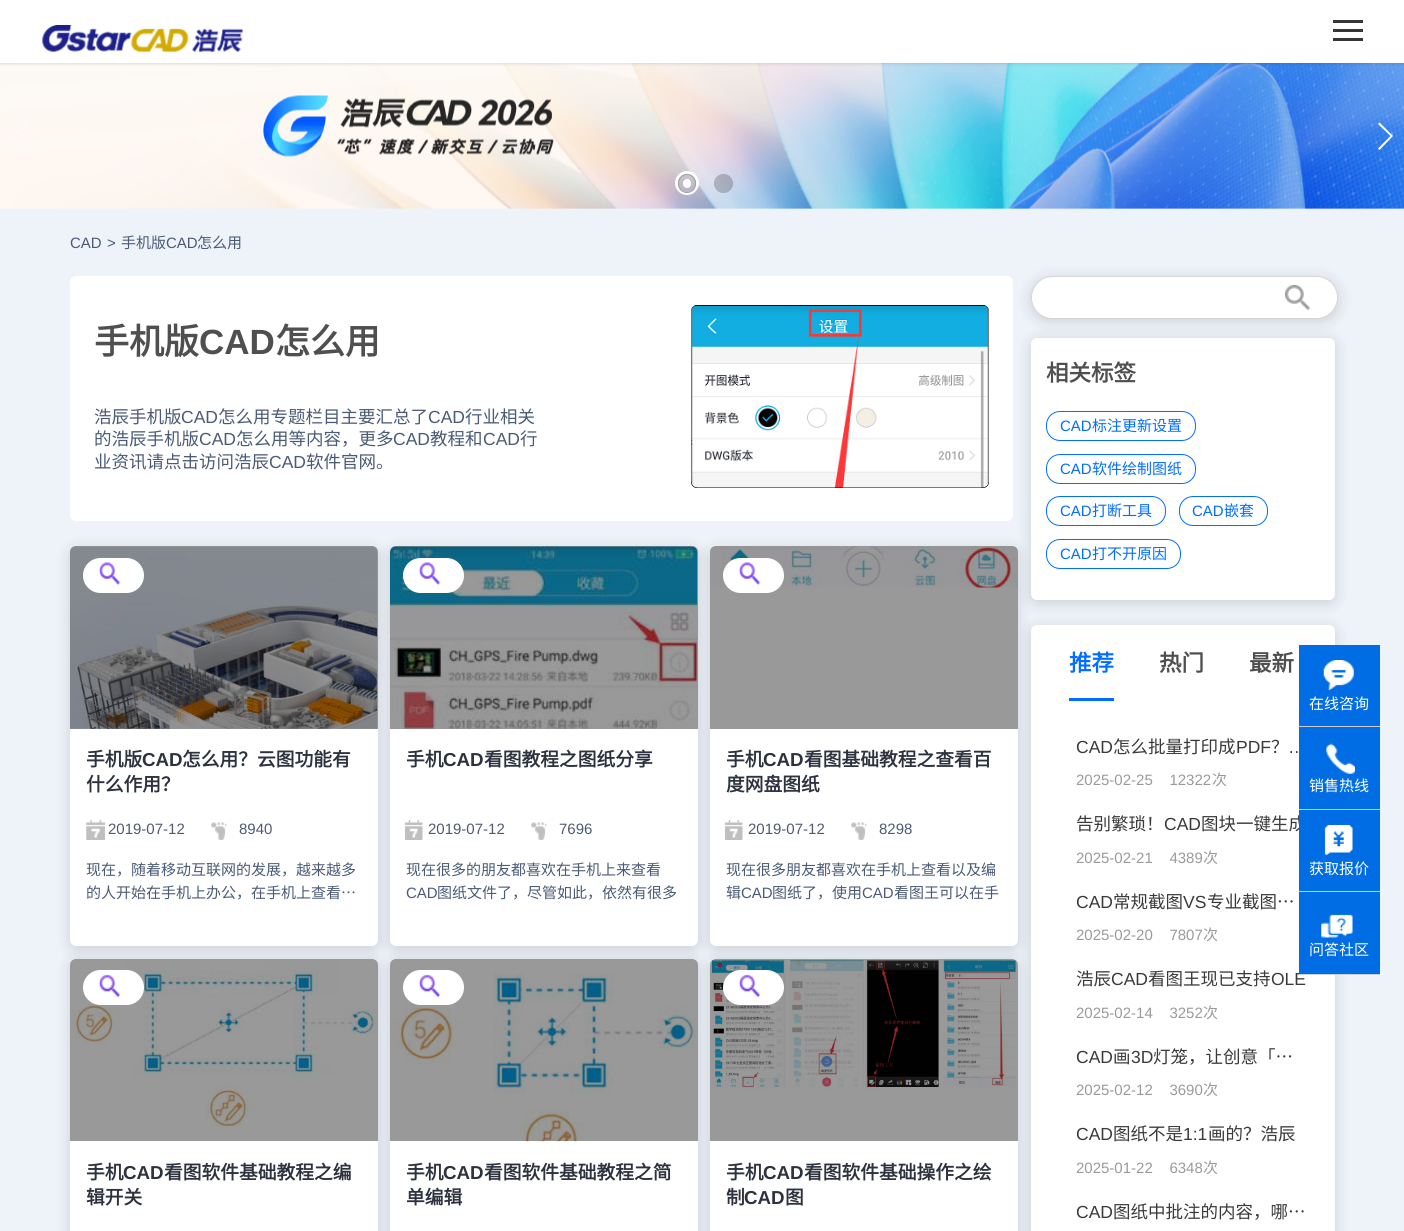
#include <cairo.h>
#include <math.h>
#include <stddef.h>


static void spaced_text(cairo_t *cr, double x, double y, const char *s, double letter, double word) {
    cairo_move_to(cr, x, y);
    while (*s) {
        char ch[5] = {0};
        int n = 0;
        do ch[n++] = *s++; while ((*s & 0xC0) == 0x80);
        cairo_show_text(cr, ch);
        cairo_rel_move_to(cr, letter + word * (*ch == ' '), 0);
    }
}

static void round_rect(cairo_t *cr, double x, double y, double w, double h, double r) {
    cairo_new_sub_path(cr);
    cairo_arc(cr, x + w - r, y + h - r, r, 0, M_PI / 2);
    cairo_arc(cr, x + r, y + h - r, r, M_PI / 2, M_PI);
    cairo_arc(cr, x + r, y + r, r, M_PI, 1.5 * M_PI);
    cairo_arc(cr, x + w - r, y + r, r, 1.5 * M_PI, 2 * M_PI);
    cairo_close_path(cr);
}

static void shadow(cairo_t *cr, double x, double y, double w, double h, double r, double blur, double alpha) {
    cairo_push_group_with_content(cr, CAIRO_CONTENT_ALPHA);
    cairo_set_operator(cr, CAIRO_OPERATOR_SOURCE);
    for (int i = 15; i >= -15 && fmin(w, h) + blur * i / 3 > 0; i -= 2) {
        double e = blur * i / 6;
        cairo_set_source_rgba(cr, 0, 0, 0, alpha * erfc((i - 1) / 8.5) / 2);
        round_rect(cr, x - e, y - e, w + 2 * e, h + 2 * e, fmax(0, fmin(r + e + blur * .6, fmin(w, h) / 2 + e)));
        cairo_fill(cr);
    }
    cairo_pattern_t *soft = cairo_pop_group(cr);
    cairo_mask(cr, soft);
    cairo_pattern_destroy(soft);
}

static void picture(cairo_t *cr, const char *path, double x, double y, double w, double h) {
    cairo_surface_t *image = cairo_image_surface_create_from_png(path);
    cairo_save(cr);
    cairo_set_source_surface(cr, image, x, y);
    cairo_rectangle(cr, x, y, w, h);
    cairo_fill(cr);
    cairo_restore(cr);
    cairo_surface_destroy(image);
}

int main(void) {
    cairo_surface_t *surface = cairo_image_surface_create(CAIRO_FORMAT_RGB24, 1404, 1231);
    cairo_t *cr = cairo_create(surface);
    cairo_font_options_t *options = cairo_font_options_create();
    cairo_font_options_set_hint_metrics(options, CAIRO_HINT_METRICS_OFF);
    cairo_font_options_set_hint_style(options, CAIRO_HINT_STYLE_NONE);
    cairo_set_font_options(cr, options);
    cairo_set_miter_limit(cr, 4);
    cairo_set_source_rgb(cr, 0.933, 0.953, 0.98);
    cairo_paint(cr);
    picture(cr, "img2.png", 0, 63, 1404, 146);
    cairo_save(cr);
    cairo_set_fill_rule(cr, CAIRO_FILL_RULE_EVEN_ODD);
    cairo_new_path(cr);
    cairo_move_to(cr, 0, 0);
    cairo_line_to(cr, 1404, 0);
    cairo_line_to(cr, 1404, 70);
    cairo_line_to(cr, 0, 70);
    cairo_close_path(cr);
    cairo_move_to(cr, 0, 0);
    cairo_line_to(cr, 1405, 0);
    cairo_line_to(cr, 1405, 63);
    cairo_line_to(cr, 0, 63);
    cairo_close_path(cr);
    cairo_clip(cr);
    cairo_set_source_rgb(cr, 0, 0, 0);
    shadow(cr, 0, 0, 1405, 63, 0, 2, 0.2);
    cairo_restore(cr);
    cairo_set_source_rgba(cr, 1, 1, 1, 0.99);
    cairo_rectangle(cr, 0, 0, 1404, 63);
    cairo_fill(cr);
    picture(cr, "img1.png", 42, 25, 201, 27);
    cairo_set_source_rgb(cr, 0.212, 0.212, 0.208);
    cairo_rectangle(cr, 1333, 38, 30, 3);
    cairo_fill(cr);
    cairo_rectangle(cr, 1333, 20, 30, 3);
    cairo_fill(cr);
    cairo_rectangle(cr, 1333, 29, 30, 3);
    cairo_fill(cr);
    cairo_save(cr);
    cairo_rectangle(cr, 13, 123, 17, 27);
    cairo_clip(cr);
    cairo_set_source_rgb(cr, 1, 0.98, 0.969);
    cairo_new_path(cr);
    cairo_move_to(cr, 12.5, 136);
    cairo_line_to(cr, 26, 122.5);
    cairo_line_to(cr, 27.5, 124);
    cairo_line_to(cr, 15, 136);
    cairo_line_to(cr, 27.5, 148.5);
    cairo_line_to(cr, 26, 150);
    cairo_close_path(cr);
    cairo_fill(cr);
    cairo_restore(cr);
    cairo_set_source_rgb(cr, 1, 1, 1);
    cairo_new_path(cr);
    cairo_move_to(cr, 1393, 136);
    cairo_line_to(cr, 1379.5, 150);
    cairo_line_to(cr, 1378, 148.5);
    cairo_line_to(cr, 1390.5, 136);
    cairo_line_to(cr, 1378, 124);
    cairo_line_to(cr, 1379.5, 122.5);
    cairo_close_path(cr);
    cairo_fill(cr);
    cairo_arc(cr, 687, 183, 10.5, 0, 2 * M_PI);
    cairo_set_line_width(cr, 3);
    cairo_stroke(cr);
    round_rect(cr, 678.5, 174.5, 17, 18, 8.5);
    cairo_set_source_rgb(cr, 0.62, 0.62, 0.62);
    cairo_set_line_width(cr, 1);
    cairo_stroke(cr);
    cairo_set_source_rgb(cr, 1, 1, 1);
    round_rect(cr, 683, 179, 8, 9, 4);
    cairo_fill(cr);
    cairo_set_source_rgba(cr, 0, 0, 0, 0.2);
    cairo_arc(cr, 723.5, 183.5, 9.5, 0, 2 * M_PI);
    cairo_fill(cr);
    cairo_arc(cr, 723.5, 183.5, 9, 0, 2 * M_PI);
    cairo_set_source_rgba(cr, 0.62, 0.62, 0.62, 0.2);
    cairo_stroke(cr);
    cairo_select_font_face(cr, "Liberation Sans", CAIRO_FONT_SLANT_NORMAL, CAIRO_FONT_WEIGHT_NORMAL);
    cairo_set_font_size(cr, 15);
    cairo_set_source_rgb(cr, 0.294, 0.357, 0.463);
    cairo_move_to(cr, 70, 248);
    cairo_show_text(cr, "CAD");
    cairo_move_to(cr, 107, 248);
    cairo_show_text(cr, ">");
    cairo_select_font_face(cr, "Noto Sans CJK SC", CAIRO_FONT_SLANT_NORMAL, CAIRO_FONT_WEIGHT_NORMAL);
    cairo_move_to(cr, 121, 248);
    cairo_show_text(cr, "手机版");
    cairo_select_font_face(cr, "Liberation Sans", CAIRO_FONT_SLANT_NORMAL, CAIRO_FONT_WEIGHT_NORMAL);
    cairo_move_to(cr, 166, 248);
    cairo_show_text(cr, "CAD");
    cairo_select_font_face(cr, "Noto Sans CJK SC", CAIRO_FONT_SLANT_NORMAL, CAIRO_FONT_WEIGHT_NORMAL);
    cairo_move_to(cr, 197, 248);
    cairo_show_text(cr, "怎么用");
    cairo_set_source_rgb(cr, 1, 1, 1);
    round_rect(cr, 70, 276, 943, 245, 6);
    cairo_fill(cr);
    cairo_select_font_face(cr, "Noto Sans CJK SC", CAIRO_FONT_SLANT_NORMAL, CAIRO_FONT_WEIGHT_BOLD);
    cairo_set_font_size(cr, 35);
    cairo_set_source_rgb(cr, 0.31, 0.31, 0.31);
    cairo_move_to(cr, 94, 354);
    cairo_show_text(cr, "手机版");
    cairo_select_font_face(cr, "Liberation Sans", CAIRO_FONT_SLANT_NORMAL, CAIRO_FONT_WEIGHT_BOLD);
    cairo_move_to(cr, 199, 354);
    cairo_show_text(cr, "CAD");
    cairo_select_font_face(cr, "Noto Sans CJK SC", CAIRO_FONT_SLANT_NORMAL, CAIRO_FONT_WEIGHT_BOLD);
    cairo_move_to(cr, 275, 354);
    cairo_show_text(cr, "怎么用");
    cairo_select_font_face(cr, "Noto Sans CJK SC", CAIRO_FONT_SLANT_NORMAL, CAIRO_FONT_WEIGHT_NORMAL);
    cairo_set_font_size(cr, 17.5);
    cairo_set_source_rgb(cr, 0.294, 0.357, 0.463);
    cairo_move_to(cr, 94, 423);
    cairo_show_text(cr, "浩辰手机版");
    cairo_select_font_face(cr, "Liberation Sans", CAIRO_FONT_SLANT_NORMAL, CAIRO_FONT_WEIGHT_NORMAL);
    cairo_move_to(cr, 181, 423);
    cairo_show_text(cr, "CAD");
    cairo_select_font_face(cr, "Noto Sans CJK SC", CAIRO_FONT_SLANT_NORMAL, CAIRO_FONT_WEIGHT_NORMAL);
    cairo_move_to(cr, 218, 423);
    cairo_show_text(cr, "怎么用专题栏目主要汇总了");
    cairo_select_font_face(cr, "Liberation Sans", CAIRO_FONT_SLANT_NORMAL, CAIRO_FONT_WEIGHT_NORMAL);
    cairo_move_to(cr, 428, 423);
    cairo_show_text(cr, "CAD");
    cairo_select_font_face(cr, "Noto Sans CJK SC", CAIRO_FONT_SLANT_NORMAL, CAIRO_FONT_WEIGHT_NORMAL);
    cairo_move_to(cr, 465, 423);
    cairo_show_text(cr, "行业相关");
    cairo_move_to(cr, 94, 445);
    cairo_show_text(cr, "的浩辰手机版");
    cairo_select_font_face(cr, "Liberation Sans", CAIRO_FONT_SLANT_NORMAL, CAIRO_FONT_WEIGHT_NORMAL);
    cairo_move_to(cr, 199, 445);
    cairo_show_text(cr, "CAD");
    cairo_select_font_face(cr, "Noto Sans CJK SC", CAIRO_FONT_SLANT_NORMAL, CAIRO_FONT_WEIGHT_NORMAL);
    cairo_move_to(cr, 236, 445);
    cairo_show_text(cr, "怎么用等内容，更多");
    cairo_select_font_face(cr, "Liberation Sans", CAIRO_FONT_SLANT_NORMAL, CAIRO_FONT_WEIGHT_NORMAL);
    cairo_move_to(cr, 393, 445);
    cairo_show_text(cr, "CAD");
    cairo_select_font_face(cr, "Noto Sans CJK SC", CAIRO_FONT_SLANT_NORMAL, CAIRO_FONT_WEIGHT_NORMAL);
    cairo_move_to(cr, 430, 445);
    cairo_show_text(cr, "教程和");
    cairo_select_font_face(cr, "Liberation Sans", CAIRO_FONT_SLANT_NORMAL, CAIRO_FONT_WEIGHT_NORMAL);
    cairo_move_to(cr, 483, 445);
    cairo_show_text(cr, "CAD");
    cairo_select_font_face(cr, "Noto Sans CJK SC", CAIRO_FONT_SLANT_NORMAL, CAIRO_FONT_WEIGHT_NORMAL);
    cairo_move_to(cr, 520, 445);
    cairo_show_text(cr, "行");
    cairo_move_to(cr, 94, 468);
    cairo_show_text(cr, "业资讯请点击访问浩辰");
    cairo_select_font_face(cr, "Liberation Sans", CAIRO_FONT_SLANT_NORMAL, CAIRO_FONT_WEIGHT_NORMAL);
    cairo_move_to(cr, 269, 468);
    cairo_show_text(cr, "CAD");
    cairo_select_font_face(cr, "Noto Sans CJK SC", CAIRO_FONT_SLANT_NORMAL, CAIRO_FONT_WEIGHT_NORMAL);
    cairo_move_to(cr, 306, 468);
    cairo_show_text(cr, "软件官网。");
    cairo_set_source_rgb(cr, 0, 0, 0);
    round_rect(cr, 691, 305, 298, 183, 6);
    cairo_fill(cr);
    picture(cr, "img3.png", 691, 305, 298, 183);
    cairo_set_source_rgb(cr, 0, 0, 0);
    shadow(cr, 70, 549, 308, 400, 6, 7.5, 0.15);
    cairo_set_source_rgb(cr, 1, 1, 1);
    round_rect(cr, 70, 546, 308, 400, 6);
    cairo_fill(cr);
    picture(cr, "img5.png", 70, 546, 308, 183);
    cairo_set_source_rgb(cr, 0, 0, 0);
    shadow(cr, 390, 549, 308, 400, 6, 7.5, 0.15);
    cairo_set_source_rgba(cr, 0, 0, 0, 0.4);
    cairo_new_path(cr);
    cairo_move_to(cr, 76, 546);
    cairo_line_to(cr, 372, 546);
    cairo_curve_to(cr, 375.5, 546, 378, 548.5, 378, 552);
    cairo_line_to(cr, 378, 729);
    cairo_line_to(cr, 70, 729);
    cairo_line_to(cr, 70, 552);
    cairo_curve_to(cr, 70, 548.5, 72.5, 546, 76, 546);
    cairo_close_path(cr);
    cairo_fill(cr);
    cairo_set_source_rgb(cr, 1, 1, 1);
    round_rect(cr, 83, 558, 61, 35, 17.5);
    cairo_fill(cr);
    picture(cr, "img4.png", 98, 562, 23, 23);
    cairo_select_font_face(cr, "Noto Sans CJK SC", CAIRO_FONT_SLANT_NORMAL, CAIRO_FONT_WEIGHT_BOLD);
    cairo_set_font_size(cr, 18.75);
    cairo_set_source_rgb(cr, 0.173, 0.196, 0.243);
    cairo_move_to(cr, 86, 766);
    cairo_show_text(cr, "手机版");
    cairo_select_font_face(cr, "Liberation Sans", CAIRO_FONT_SLANT_NORMAL, CAIRO_FONT_WEIGHT_BOLD);
    cairo_move_to(cr, 142, 766);
    cairo_show_text(cr, "CAD");
    cairo_select_font_face(cr, "Noto Sans CJK SC", CAIRO_FONT_SLANT_NORMAL, CAIRO_FONT_WEIGHT_BOLD);
    cairo_move_to(cr, 182, 766);
    cairo_show_text(cr, "怎么用？云图功能有");
    cairo_move_to(cr, 86, 791);
    cairo_show_text(cr, "什么作用？");
    picture(cr, "img6.png", 86, 820, 19, 20);
    cairo_select_font_face(cr, "Liberation Sans", CAIRO_FONT_SLANT_NORMAL, CAIRO_FONT_WEIGHT_NORMAL);
    cairo_set_font_size(cr, 15);
    cairo_set_source_rgb(cr, 0.294, 0.357, 0.463);
    cairo_move_to(cr, 108, 834);
    cairo_show_text(cr, "2019-07-12");
    picture(cr, "img7.png", 211, 822, 16, 18);
    cairo_move_to(cr, 239, 834);
    cairo_show_text(cr, "8940");
    cairo_select_font_face(cr, "Noto Sans CJK SC", CAIRO_FONT_SLANT_NORMAL, CAIRO_FONT_WEIGHT_NORMAL);
    cairo_move_to(cr, 86, 875);
    cairo_show_text(cr, "现在，随着移动互联网的发展，越来越多");
    cairo_move_to(cr, 86, 898);
    cairo_show_text(cr, "的人开始在手机上办公，在手机上查看…");
    cairo_set_source_rgb(cr, 1, 1, 1);
    round_rect(cr, 390, 546, 308, 400, 6);
    cairo_fill(cr);
    picture(cr, "img9.png", 390, 546, 308, 183);
    cairo_set_source_rgb(cr, 0, 0, 0);
    shadow(cr, 1031, 279, 307, 42, 21, 7.5, 0.15);
    cairo_set_source_rgb(cr, 1, 1, 1);
    round_rect(cr, 1031.5, 276.5, 306, 42, 21);
    cairo_fill_preserve(cr);
    cairo_set_source_rgb(cr, 0.843, 0.843, 0.843);
    cairo_stroke(cr);
    cairo_set_source_rgb(cr, 0, 0, 0);
    shadow(cr, 1031, 340, 304, 263, 6, 7.5, 0.15);
    cairo_set_source_rgb(cr, 1, 1, 1);
    round_rect(cr, 1031, 338, 304, 262, 6);
    cairo_fill(cr);
    cairo_set_source_rgb(cr, 0, 0, 0);
    shadow(cr, 1031, 628, 304, 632, 6, 7.5, 0.15);
    cairo_set_source_rgb(cr, 1, 1, 1);
    round_rect(cr, 1031, 625, 304, 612, 6);
    cairo_fill(cr);
    cairo_set_source_rgb(cr, 0, 0, 0);
    shadow(cr, 710, 549, 308, 400, 6, 7.5, 0.15);
    cairo_set_source_rgba(cr, 0, 0, 0, 0.4);
    cairo_new_path(cr);
    cairo_move_to(cr, 396, 546);
    cairo_line_to(cr, 692, 546);
    cairo_curve_to(cr, 695.5, 546, 698, 548.5, 698, 552);
    cairo_line_to(cr, 698, 729);
    cairo_line_to(cr, 390, 729);
    cairo_line_to(cr, 390, 552);
    cairo_curve_to(cr, 390, 548.5, 392.5, 546, 396, 546);
    cairo_close_path(cr);
    cairo_fill(cr);
    cairo_set_source_rgb(cr, 1, 1, 1);
    round_rect(cr, 403, 558, 61, 35, 17.5);
    cairo_fill(cr);
    picture(cr, "img8.png", 418, 562, 23, 23);
    cairo_select_font_face(cr, "Noto Sans CJK SC", CAIRO_FONT_SLANT_NORMAL, CAIRO_FONT_WEIGHT_BOLD);
    cairo_set_font_size(cr, 18.75);
    cairo_set_source_rgb(cr, 0.173, 0.196, 0.243);
    cairo_move_to(cr, 406, 766);
    cairo_show_text(cr, "手机");
    cairo_select_font_face(cr, "Liberation Sans", CAIRO_FONT_SLANT_NORMAL, CAIRO_FONT_WEIGHT_BOLD);
    cairo_move_to(cr, 443, 766);
    cairo_show_text(cr, "CAD");
    cairo_select_font_face(cr, "Noto Sans CJK SC", CAIRO_FONT_SLANT_NORMAL, CAIRO_FONT_WEIGHT_BOLD);
    cairo_move_to(cr, 484, 766);
    cairo_show_text(cr, "看图教程之图纸分享");
    picture(cr, "img10.png", 405, 820, 18, 20);
    cairo_select_font_face(cr, "Liberation Sans", CAIRO_FONT_SLANT_NORMAL, CAIRO_FONT_WEIGHT_NORMAL);
    cairo_set_font_size(cr, 15);
    cairo_set_source_rgb(cr, 0.294, 0.357, 0.463);
    cairo_move_to(cr, 428, 834);
    cairo_show_text(cr, "2019-07-12");
    picture(cr, "img7.png", 531, 822, 16, 18);
    cairo_move_to(cr, 559, 834);
    cairo_show_text(cr, "7696");
    cairo_select_font_face(cr, "Noto Sans CJK SC", CAIRO_FONT_SLANT_NORMAL, CAIRO_FONT_WEIGHT_NORMAL);
    cairo_move_to(cr, 406, 875);
    cairo_show_text(cr, "现在很多的朋友都喜欢在手机上来查看");
    cairo_select_font_face(cr, "Liberation Sans", CAIRO_FONT_SLANT_NORMAL, CAIRO_FONT_WEIGHT_NORMAL);
    cairo_move_to(cr, 406, 898);
    cairo_show_text(cr, "CAD");
    cairo_select_font_face(cr, "Noto Sans CJK SC", CAIRO_FONT_SLANT_NORMAL, CAIRO_FONT_WEIGHT_NORMAL);
    cairo_move_to(cr, 437, 898);
    cairo_show_text(cr, "图纸文件了，尽管如此，依然有很多");
    cairo_set_source_rgb(cr, 1, 1, 1);
    round_rect(cr, 710, 546, 308, 400, 6);
    cairo_fill(cr);
    picture(cr, "img11.png", 710, 546, 308, 42);
    cairo_set_source_rgba(cr, 0, 0, 0, 0.4);
    cairo_new_path(cr);
    cairo_move_to(cr, 716, 546);
    cairo_line_to(cr, 1012, 546);
    cairo_curve_to(cr, 1015.5, 546, 1018, 548.5, 1018, 552);
    cairo_line_to(cr, 1018, 729);
    cairo_line_to(cr, 710, 729);
    cairo_line_to(cr, 710, 552);
    cairo_curve_to(cr, 710, 548.5, 712.5, 546, 716, 546);
    cairo_close_path(cr);
    cairo_fill(cr);
    cairo_set_source_rgb(cr, 1, 1, 1);
    round_rect(cr, 723, 558, 61, 35, 17.5);
    cairo_fill(cr);
    picture(cr, "img8.png", 738, 562, 23, 23);
    cairo_select_font_face(cr, "Noto Sans CJK SC", CAIRO_FONT_SLANT_NORMAL, CAIRO_FONT_WEIGHT_BOLD);
    cairo_set_font_size(cr, 18.75);
    cairo_set_source_rgb(cr, 0.173, 0.196, 0.243);
    cairo_move_to(cr, 726, 766);
    cairo_show_text(cr, "手机");
    cairo_select_font_face(cr, "Liberation Sans", CAIRO_FONT_SLANT_NORMAL, CAIRO_FONT_WEIGHT_BOLD);
    cairo_move_to(cr, 763, 766);
    cairo_show_text(cr, "CAD");
    cairo_select_font_face(cr, "Noto Sans CJK SC", CAIRO_FONT_SLANT_NORMAL, CAIRO_FONT_WEIGHT_BOLD);
    cairo_move_to(cr, 804, 766);
    cairo_show_text(cr, "看图基础教程之查看百");
    cairo_move_to(cr, 726, 791);
    cairo_show_text(cr, "度网盘图纸");
    picture(cr, "img12.png", 725, 820, 18, 20);
    cairo_select_font_face(cr, "Liberation Sans", CAIRO_FONT_SLANT_NORMAL, CAIRO_FONT_WEIGHT_NORMAL);
    cairo_set_font_size(cr, 15);
    cairo_set_source_rgb(cr, 0.294, 0.357, 0.463);
    cairo_move_to(cr, 748, 834);
    cairo_show_text(cr, "2019-07-12");
    picture(cr, "img7.png", 851, 822, 16, 18);
    cairo_move_to(cr, 879, 834);
    cairo_show_text(cr, "8298");
    cairo_select_font_face(cr, "Noto Sans CJK SC", CAIRO_FONT_SLANT_NORMAL, CAIRO_FONT_WEIGHT_NORMAL);
    cairo_move_to(cr, 726, 875);
    cairo_show_text(cr, "现在很多朋友都喜欢在手机上查看以及编");
    cairo_move_to(cr, 726, 898);
    cairo_show_text(cr, "辑");
    cairo_select_font_face(cr, "Liberation Sans", CAIRO_FONT_SLANT_NORMAL, CAIRO_FONT_WEIGHT_NORMAL);
    cairo_move_to(cr, 741, 898);
    cairo_show_text(cr, "CAD");
    cairo_select_font_face(cr, "Noto Sans CJK SC", CAIRO_FONT_SLANT_NORMAL, CAIRO_FONT_WEIGHT_NORMAL);
    cairo_move_to(cr, 772, 898);
    cairo_show_text(cr, "图纸了，使用");
    cairo_select_font_face(cr, "Liberation Sans", CAIRO_FONT_SLANT_NORMAL, CAIRO_FONT_WEIGHT_NORMAL);
    cairo_move_to(cr, 862, 898);
    cairo_show_text(cr, "CAD");
    cairo_select_font_face(cr, "Noto Sans CJK SC", CAIRO_FONT_SLANT_NORMAL, CAIRO_FONT_WEIGHT_NORMAL);
    cairo_move_to(cr, 894, 898);
    cairo_show_text(cr, "看图王可以在手");
    cairo_set_source_rgb(cr, 0, 0, 0);
    shadow(cr, 70, 961, 308, 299, 6, 7.5, 0.15);
    cairo_set_source_rgb(cr, 1, 1, 1);
    round_rect(cr, 70, 959, 308, 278, 6);
    cairo_fill(cr);
    picture(cr, "img14.png", 70, 959, 307, 168);
    cairo_set_source_rgb(cr, 0, 0, 0);
    shadow(cr, 390, 961, 308, 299, 6, 7.5, 0.15);
    cairo_set_source_rgba(cr, 0, 0, 0, 0.4);
    cairo_new_path(cr);
    cairo_move_to(cr, 76, 959);
    cairo_line_to(cr, 372, 959);
    cairo_curve_to(cr, 375.5, 959, 378, 961.5, 378, 965);
    cairo_line_to(cr, 378, 1141);
    cairo_line_to(cr, 70, 1141);
    cairo_line_to(cr, 70, 965);
    cairo_curve_to(cr, 70, 961.5, 72.5, 959, 76, 959);
    cairo_close_path(cr);
    cairo_fill(cr);
    cairo_set_source_rgb(cr, 1, 1, 1);
    round_rect(cr, 83, 970, 61, 35, 17.5);
    cairo_fill(cr);
    picture(cr, "img13.png", 98, 974, 23, 24);
    cairo_select_font_face(cr, "Noto Sans CJK SC", CAIRO_FONT_SLANT_NORMAL, CAIRO_FONT_WEIGHT_BOLD);
    cairo_set_font_size(cr, 18.75);
    cairo_set_source_rgb(cr, 0.173, 0.196, 0.243);
    cairo_move_to(cr, 86, 1179);
    cairo_show_text(cr, "手机");
    cairo_select_font_face(cr, "Liberation Sans", CAIRO_FONT_SLANT_NORMAL, CAIRO_FONT_WEIGHT_BOLD);
    cairo_move_to(cr, 123, 1179);
    cairo_show_text(cr, "CAD");
    cairo_select_font_face(cr, "Noto Sans CJK SC", CAIRO_FONT_SLANT_NORMAL, CAIRO_FONT_WEIGHT_BOLD);
    cairo_move_to(cr, 164, 1179);
    cairo_show_text(cr, "看图软件基础教程之编");
    cairo_move_to(cr, 86, 1204);
    cairo_show_text(cr, "辑开关");
    cairo_set_source_rgb(cr, 1, 1, 1);
    round_rect(cr, 390, 959, 308, 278, 6);
    cairo_fill(cr);
    picture(cr, "img16.png", 390, 959, 307, 183);
    cairo_set_source_rgb(cr, 0, 0, 0);
    shadow(cr, 710, 961, 308, 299, 6, 7.5, 0.15);
    cairo_set_source_rgba(cr, 0, 0, 0, 0.4);
    cairo_new_path(cr);
    cairo_move_to(cr, 396, 959);
    cairo_line_to(cr, 692, 959);
    cairo_curve_to(cr, 695.5, 959, 698, 961.5, 698, 965);
    cairo_line_to(cr, 698, 1141);
    cairo_line_to(cr, 390, 1141);
    cairo_line_to(cr, 390, 965);
    cairo_curve_to(cr, 390, 961.5, 392.5, 959, 396, 959);
    cairo_close_path(cr);
    cairo_fill(cr);
    cairo_set_source_rgb(cr, 1, 1, 1);
    round_rect(cr, 403, 970, 61, 35, 17.5);
    cairo_fill(cr);
    picture(cr, "img15.png", 418, 974, 23, 24);
    cairo_set_source_rgb(cr, 0.173, 0.196, 0.243);
    cairo_move_to(cr, 406, 1179);
    cairo_show_text(cr, "手机");
    cairo_select_font_face(cr, "Liberation Sans", CAIRO_FONT_SLANT_NORMAL, CAIRO_FONT_WEIGHT_BOLD);
    cairo_move_to(cr, 443, 1179);
    cairo_show_text(cr, "CAD");
    cairo_select_font_face(cr, "Noto Sans CJK SC", CAIRO_FONT_SLANT_NORMAL, CAIRO_FONT_WEIGHT_BOLD);
    cairo_move_to(cr, 484, 1179);
    cairo_show_text(cr, "看图软件基础教程之简");
    cairo_move_to(cr, 406, 1204);
    cairo_show_text(cr, "单编辑");
    cairo_set_source_rgb(cr, 1, 1, 1);
    round_rect(cr, 710, 959, 308, 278, 6);
    cairo_fill(cr);
    picture(cr, "img17.png", 710, 959, 306, 132);
    cairo_set_source_rgba(cr, 0, 0, 0, 0.4);
    cairo_new_path(cr);
    cairo_move_to(cr, 716, 959);
    cairo_line_to(cr, 1012, 959);
    cairo_curve_to(cr, 1015.5, 959, 1018, 961.5, 1018, 965);
    cairo_line_to(cr, 1018, 1141);
    cairo_line_to(cr, 710, 1141);
    cairo_line_to(cr, 710, 965);
    cairo_curve_to(cr, 710, 961.5, 712.5, 959, 716, 959);
    cairo_close_path(cr);
    cairo_fill(cr);
    cairo_set_source_rgb(cr, 1, 1, 1);
    round_rect(cr, 723, 970, 61, 35, 17.5);
    cairo_fill(cr);
    picture(cr, "img15.png", 738, 974, 23, 24);
    cairo_set_source_rgb(cr, 0.173, 0.196, 0.243);
    cairo_move_to(cr, 726, 1179);
    cairo_show_text(cr, "手机");
    cairo_select_font_face(cr, "Liberation Sans", CAIRO_FONT_SLANT_NORMAL, CAIRO_FONT_WEIGHT_BOLD);
    cairo_move_to(cr, 763, 1179);
    cairo_show_text(cr, "CAD");
    cairo_select_font_face(cr, "Noto Sans CJK SC", CAIRO_FONT_SLANT_NORMAL, CAIRO_FONT_WEIGHT_BOLD);
    cairo_move_to(cr, 804, 1179);
    cairo_show_text(cr, "看图软件基础操作之绘");
    cairo_move_to(cr, 726, 1204);
    cairo_show_text(cr, "制");
    cairo_select_font_face(cr, "Liberation Sans", CAIRO_FONT_SLANT_NORMAL, CAIRO_FONT_WEIGHT_BOLD);
    cairo_move_to(cr, 744, 1204);
    cairo_show_text(cr, "CAD");
    cairo_select_font_face(cr, "Noto Sans CJK SC", CAIRO_FONT_SLANT_NORMAL, CAIRO_FONT_WEIGHT_BOLD);
    cairo_move_to(cr, 785, 1204);
    cairo_show_text(cr, "图");
    picture(cr, "img18.png", 1285, 285, 25, 25);
    cairo_set_font_size(cr, 22.5);
    cairo_set_source_rgb(cr, 0.31, 0.31, 0.31);
    cairo_move_to(cr, 1046, 381);
    cairo_show_text(cr, "相关标签");
    round_rect(cr, 1046.5, 411.5, 149, 29, 13.5);
    cairo_set_source_rgb(cr, 0.008, 0.431, 1);
    cairo_stroke(cr);
    cairo_select_font_face(cr, "Liberation Sans", CAIRO_FONT_SLANT_NORMAL, CAIRO_FONT_WEIGHT_NORMAL);
    cairo_set_font_size(cr, 15);
    cairo_move_to(cr, 1060, 431);
    cairo_show_text(cr, "CAD");
    cairo_select_font_face(cr, "Noto Sans CJK SC", CAIRO_FONT_SLANT_NORMAL, CAIRO_FONT_WEIGHT_NORMAL);
    cairo_move_to(cr, 1092, 431);
    cairo_show_text(cr, "标注更新设置");
    round_rect(cr, 1046.5, 454.5, 149, 29, 13.5);
    cairo_stroke(cr);
    cairo_select_font_face(cr, "Liberation Sans", CAIRO_FONT_SLANT_NORMAL, CAIRO_FONT_WEIGHT_NORMAL);
    cairo_move_to(cr, 1060, 474);
    cairo_show_text(cr, "CAD");
    cairo_select_font_face(cr, "Noto Sans CJK SC", CAIRO_FONT_SLANT_NORMAL, CAIRO_FONT_WEIGHT_NORMAL);
    cairo_move_to(cr, 1092, 474);
    cairo_show_text(cr, "软件绘制图纸");
    round_rect(cr, 1046.5, 496.5, 119, 29, 13.5);
    cairo_stroke(cr);
    cairo_select_font_face(cr, "Liberation Sans", CAIRO_FONT_SLANT_NORMAL, CAIRO_FONT_WEIGHT_NORMAL);
    cairo_move_to(cr, 1060, 516);
    cairo_show_text(cr, "CAD");
    cairo_select_font_face(cr, "Noto Sans CJK SC", CAIRO_FONT_SLANT_NORMAL, CAIRO_FONT_WEIGHT_NORMAL);
    cairo_move_to(cr, 1092, 516);
    cairo_show_text(cr, "打断工具");
    round_rect(cr, 1179.5, 496.5, 88, 29, 13.5);
    cairo_stroke(cr);
    cairo_select_font_face(cr, "Liberation Sans", CAIRO_FONT_SLANT_NORMAL, CAIRO_FONT_WEIGHT_NORMAL);
    cairo_move_to(cr, 1192, 516);
    cairo_show_text(cr, "CAD");
    cairo_select_font_face(cr, "Noto Sans CJK SC", CAIRO_FONT_SLANT_NORMAL, CAIRO_FONT_WEIGHT_NORMAL);
    cairo_move_to(cr, 1224, 516);
    cairo_show_text(cr, "嵌套");
    round_rect(cr, 1046.5, 539.5, 134, 29, 13.5);
    cairo_stroke(cr);
    cairo_select_font_face(cr, "Liberation Sans", CAIRO_FONT_SLANT_NORMAL, CAIRO_FONT_WEIGHT_NORMAL);
    cairo_move_to(cr, 1060, 559);
    cairo_show_text(cr, "CAD");
    cairo_select_font_face(cr, "Noto Sans CJK SC", CAIRO_FONT_SLANT_NORMAL, CAIRO_FONT_WEIGHT_NORMAL);
    cairo_move_to(cr, 1092, 559);
    cairo_show_text(cr, "打不开原因");
    cairo_rectangle(cr, 1069, 698, 45, 3);
    cairo_fill(cr);
    cairo_select_font_face(cr, "Noto Sans CJK SC", CAIRO_FONT_SLANT_NORMAL, CAIRO_FONT_WEIGHT_BOLD);
    cairo_set_font_size(cr, 22.5);
    cairo_move_to(cr, 1069, 671);
    cairo_show_text(cr, "推荐");
    cairo_set_source_rgb(cr, 0.31, 0.31, 0.31);
    cairo_move_to(cr, 1159, 671);
    cairo_show_text(cr, "热门");
    cairo_move_to(cr, 1249, 671);
    cairo_show_text(cr, "最新");
    cairo_select_font_face(cr, "Liberation Sans", CAIRO_FONT_SLANT_NORMAL, CAIRO_FONT_WEIGHT_NORMAL);
    cairo_set_font_size(cr, 17.5);
    cairo_set_source_rgb(cr, 0.227, 0.227, 0.227);
    cairo_move_to(cr, 1076, 753);
    cairo_show_text(cr, "CAD");
    cairo_select_font_face(cr, "Noto Sans CJK SC", CAIRO_FONT_SLANT_NORMAL, CAIRO_FONT_WEIGHT_NORMAL);
    cairo_move_to(cr, 1113, 753);
    cairo_show_text(cr, "怎么批量打印成");
    cairo_select_font_face(cr, "Liberation Sans", CAIRO_FONT_SLANT_NORMAL, CAIRO_FONT_WEIGHT_NORMAL);
    cairo_move_to(cr, 1236, 753);
    cairo_show_text(cr, "PDF");
    cairo_select_font_face(cr, "Noto Sans CJK SC", CAIRO_FONT_SLANT_NORMAL, CAIRO_FONT_WEIGHT_NORMAL);
    cairo_move_to(cr, 1271, 753);
    cairo_show_text(cr, "？");
    cairo_select_font_face(cr, "Liberation Sans", CAIRO_FONT_SLANT_NORMAL, CAIRO_FONT_WEIGHT_NORMAL);
    cairo_move_to(cr, 1288, 753);
    cairo_show_text(cr, "…");
    cairo_set_font_size(cr, 15);
    cairo_set_source_rgb(cr, 0.604, 0.604, 0.604);
    cairo_move_to(cr, 1076, 785);
    cairo_show_text(cr, "2025-02-25    12322");
    cairo_select_font_face(cr, "Noto Sans CJK SC", CAIRO_FONT_SLANT_NORMAL, CAIRO_FONT_WEIGHT_NORMAL);
    cairo_move_to(cr, 1212, 785);
    cairo_show_text(cr, "次");
    cairo_set_font_size(cr, 17.5);
    cairo_set_source_rgb(cr, 0.227, 0.227, 0.227);
    cairo_move_to(cr, 1076, 830);
    cairo_show_text(cr, "告别繁琐！");
    cairo_select_font_face(cr, "Liberation Sans", CAIRO_FONT_SLANT_NORMAL, CAIRO_FONT_WEIGHT_NORMAL);
    cairo_move_to(cr, 1164, 830);
    cairo_show_text(cr, "CAD");
    cairo_select_font_face(cr, "Noto Sans CJK SC", CAIRO_FONT_SLANT_NORMAL, CAIRO_FONT_WEIGHT_NORMAL);
    cairo_move_to(cr, 1201, 830);
    cairo_show_text(cr, "图块一键生成");
    cairo_select_font_face(cr, "Liberation Sans", CAIRO_FONT_SLANT_NORMAL, CAIRO_FONT_WEIGHT_NORMAL);
    cairo_set_font_size(cr, 15);
    cairo_set_source_rgb(cr, 0.604, 0.604, 0.604);
    cairo_move_to(cr, 1076, 863);
    cairo_show_text(cr, "2025-02-21    4389");
    cairo_select_font_face(cr, "Noto Sans CJK SC", CAIRO_FONT_SLANT_NORMAL, CAIRO_FONT_WEIGHT_NORMAL);
    cairo_move_to(cr, 1203, 863);
    cairo_show_text(cr, "次");
    cairo_select_font_face(cr, "Liberation Sans", CAIRO_FONT_SLANT_NORMAL, CAIRO_FONT_WEIGHT_NORMAL);
    cairo_set_font_size(cr, 17.5);
    cairo_set_source_rgb(cr, 0.227, 0.227, 0.227);
    cairo_move_to(cr, 1076, 908);
    cairo_show_text(cr, "CAD");
    cairo_select_font_face(cr, "Noto Sans CJK SC", CAIRO_FONT_SLANT_NORMAL, CAIRO_FONT_WEIGHT_NORMAL);
    cairo_move_to(cr, 1113, 908);
    cairo_show_text(cr, "常规截图");
    cairo_select_font_face(cr, "Liberation Sans", CAIRO_FONT_SLANT_NORMAL, CAIRO_FONT_WEIGHT_NORMAL);
    cairo_move_to(cr, 1183, 908);
    cairo_show_text(cr, "VS");
    cairo_select_font_face(cr, "Noto Sans CJK SC", CAIRO_FONT_SLANT_NORMAL, CAIRO_FONT_WEIGHT_NORMAL);
    cairo_move_to(cr, 1207, 908);
    cairo_show_text(cr, "专业截图…");
    cairo_select_font_face(cr, "Liberation Sans", CAIRO_FONT_SLANT_NORMAL, CAIRO_FONT_WEIGHT_NORMAL);
    cairo_set_font_size(cr, 15);
    cairo_set_source_rgb(cr, 0.604, 0.604, 0.604);
    cairo_move_to(cr, 1076, 940);
    cairo_show_text(cr, "2025-02-20    7807");
    cairo_select_font_face(cr, "Noto Sans CJK SC", CAIRO_FONT_SLANT_NORMAL, CAIRO_FONT_WEIGHT_NORMAL);
    cairo_move_to(cr, 1203, 940);
    cairo_show_text(cr, "次");
    cairo_set_font_size(cr, 17.5);
    cairo_set_source_rgb(cr, 0.227, 0.227, 0.227);
    cairo_move_to(cr, 1076, 985);
    cairo_show_text(cr, "浩辰");
    cairo_select_font_face(cr, "Liberation Sans", CAIRO_FONT_SLANT_NORMAL, CAIRO_FONT_WEIGHT_NORMAL);
    cairo_move_to(cr, 1111, 985);
    cairo_show_text(cr, "CAD");
    cairo_select_font_face(cr, "Noto Sans CJK SC", CAIRO_FONT_SLANT_NORMAL, CAIRO_FONT_WEIGHT_NORMAL);
    cairo_move_to(cr, 1148, 985);
    cairo_show_text(cr, "看图王现已支持");
    cairo_select_font_face(cr, "Liberation Sans", CAIRO_FONT_SLANT_NORMAL, CAIRO_FONT_WEIGHT_NORMAL);
    cairo_move_to(cr, 1271, 985);
    cairo_show_text(cr, "OLE");
    cairo_set_font_size(cr, 15);
    cairo_set_source_rgb(cr, 0.604, 0.604, 0.604);
    cairo_move_to(cr, 1076, 1018);
    cairo_show_text(cr, "2025-02-14    3252");
    cairo_select_font_face(cr, "Noto Sans CJK SC", CAIRO_FONT_SLANT_NORMAL, CAIRO_FONT_WEIGHT_NORMAL);
    cairo_move_to(cr, 1203, 1018);
    cairo_show_text(cr, "次");
    cairo_select_font_face(cr, "Liberation Sans", CAIRO_FONT_SLANT_NORMAL, CAIRO_FONT_WEIGHT_NORMAL);
    cairo_set_font_size(cr, 17.5);
    cairo_set_source_rgb(cr, 0.227, 0.227, 0.227);
    cairo_move_to(cr, 1076, 1063);
    cairo_show_text(cr, "CAD");
    cairo_select_font_face(cr, "Noto Sans CJK SC", CAIRO_FONT_SLANT_NORMAL, CAIRO_FONT_WEIGHT_NORMAL);
    cairo_move_to(cr, 1113, 1063);
    cairo_show_text(cr, "画");
    cairo_select_font_face(cr, "Liberation Sans", CAIRO_FONT_SLANT_NORMAL, CAIRO_FONT_WEIGHT_NORMAL);
    cairo_move_to(cr, 1131, 1063);
    cairo_show_text(cr, "3D");
    cairo_select_font_face(cr, "Noto Sans CJK SC", CAIRO_FONT_SLANT_NORMAL, CAIRO_FONT_WEIGHT_NORMAL);
    spaced_text(cr, 1153, 1063, "灯笼，让创意「…", 0, 1);
    cairo_select_font_face(cr, "Liberation Sans", CAIRO_FONT_SLANT_NORMAL, CAIRO_FONT_WEIGHT_NORMAL);
    cairo_set_font_size(cr, 15);
    cairo_set_source_rgb(cr, 0.604, 0.604, 0.604);
    cairo_move_to(cr, 1076, 1095);
    cairo_show_text(cr, "2025-02-12    3690");
    cairo_select_font_face(cr, "Noto Sans CJK SC", CAIRO_FONT_SLANT_NORMAL, CAIRO_FONT_WEIGHT_NORMAL);
    cairo_move_to(cr, 1203, 1095);
    cairo_show_text(cr, "次");
    cairo_select_font_face(cr, "Liberation Sans", CAIRO_FONT_SLANT_NORMAL, CAIRO_FONT_WEIGHT_NORMAL);
    cairo_set_font_size(cr, 17.5);
    cairo_set_source_rgb(cr, 0.227, 0.227, 0.227);
    cairo_move_to(cr, 1076, 1140);
    cairo_show_text(cr, "CAD");
    cairo_select_font_face(cr, "Noto Sans CJK SC", CAIRO_FONT_SLANT_NORMAL, CAIRO_FONT_WEIGHT_NORMAL);
    cairo_move_to(cr, 1113, 1140);
    cairo_show_text(cr, "图纸不是");
    cairo_select_font_face(cr, "Liberation Sans", CAIRO_FONT_SLANT_NORMAL, CAIRO_FONT_WEIGHT_NORMAL);
    cairo_move_to(cr, 1183, 1140);
    cairo_show_text(cr, "1:1");
    cairo_select_font_face(cr, "Noto Sans CJK SC", CAIRO_FONT_SLANT_NORMAL, CAIRO_FONT_WEIGHT_NORMAL);
    cairo_move_to(cr, 1208, 1140);
    cairo_show_text(cr, "画的？浩辰");
    cairo_select_font_face(cr, "Liberation Sans", CAIRO_FONT_SLANT_NORMAL, CAIRO_FONT_WEIGHT_NORMAL);
    cairo_set_font_size(cr, 15);
    cairo_set_source_rgb(cr, 0.604, 0.604, 0.604);
    cairo_move_to(cr, 1076, 1173);
    cairo_show_text(cr, "2025-01-22    6348");
    cairo_select_font_face(cr, "Noto Sans CJK SC", CAIRO_FONT_SLANT_NORMAL, CAIRO_FONT_WEIGHT_NORMAL);
    cairo_move_to(cr, 1203, 1173);
    cairo_show_text(cr, "次");
    cairo_select_font_face(cr, "Liberation Sans", CAIRO_FONT_SLANT_NORMAL, CAIRO_FONT_WEIGHT_NORMAL);
    cairo_set_font_size(cr, 17.5);
    cairo_set_source_rgb(cr, 0.227, 0.227, 0.227);
    cairo_move_to(cr, 1076, 1218);
    cairo_show_text(cr, "CAD");
    cairo_select_font_face(cr, "Noto Sans CJK SC", CAIRO_FONT_SLANT_NORMAL, CAIRO_FONT_WEIGHT_NORMAL);
    cairo_move_to(cr, 1113, 1218);
    cairo_show_text(cr, "图纸中批注的内容，哪…");
    cairo_set_source_rgb(cr, 0, 0.427, 0.894);
    cairo_rectangle(cr, 1299, 645, 81, 164);
    cairo_fill(cr);
    cairo_set_source_rgb(cr, 0.804, 0.804, 0.804);
    cairo_rectangle(cr, 1299, 726, 81, 1);
    cairo_fill(cr);
    picture(cr, "img19.png", 1323, 660, 31, 30);
    cairo_set_font_size(cr, 15);
    cairo_set_source_rgb(cr, 1, 1, 1);
    cairo_move_to(cr, 1309, 709);
    cairo_show_text(cr, "在线咨询");
    cairo_set_source_rgb(cr, 0.804, 0.804, 0.804);
    cairo_rectangle(cr, 1299, 809, 81, 1);
    cairo_fill(cr);
    picture(cr, "img20.png", 1326, 743, 29, 31);
    cairo_set_source_rgb(cr, 1, 1, 1);
    cairo_move_to(cr, 1309, 791);
    cairo_show_text(cr, "销售热线");
    cairo_set_source_rgb(cr, 0, 0.427, 0.894);
    cairo_rectangle(cr, 1299, 810, 81, 164);
    cairo_fill(cr);
    cairo_set_source_rgb(cr, 0.804, 0.804, 0.804);
    cairo_rectangle(cr, 1299, 891, 81, 1);
    cairo_fill(cr);
    picture(cr, "img21.png", 1324, 825, 29, 30);
    cairo_set_source_rgb(cr, 1, 1, 1);
    cairo_move_to(cr, 1309, 874);
    cairo_show_text(cr, "获取报价");
    cairo_set_source_rgb(cr, 0.804, 0.804, 0.804);
    cairo_rectangle(cr, 1299, 974, 81, 1);
    cairo_fill(cr);
    picture(cr, "img22.png", 1321, 914, 32, 24);
    cairo_set_source_rgb(cr, 1, 1, 1);
    cairo_move_to(cr, 1309, 955);
    cairo_show_text(cr, "问答社区");
    cairo_surface_write_to_png(surface, "page.png");
    cairo_font_options_destroy(options);
    cairo_destroy(cr);
    cairo_surface_destroy(surface);
    return 0;
}
